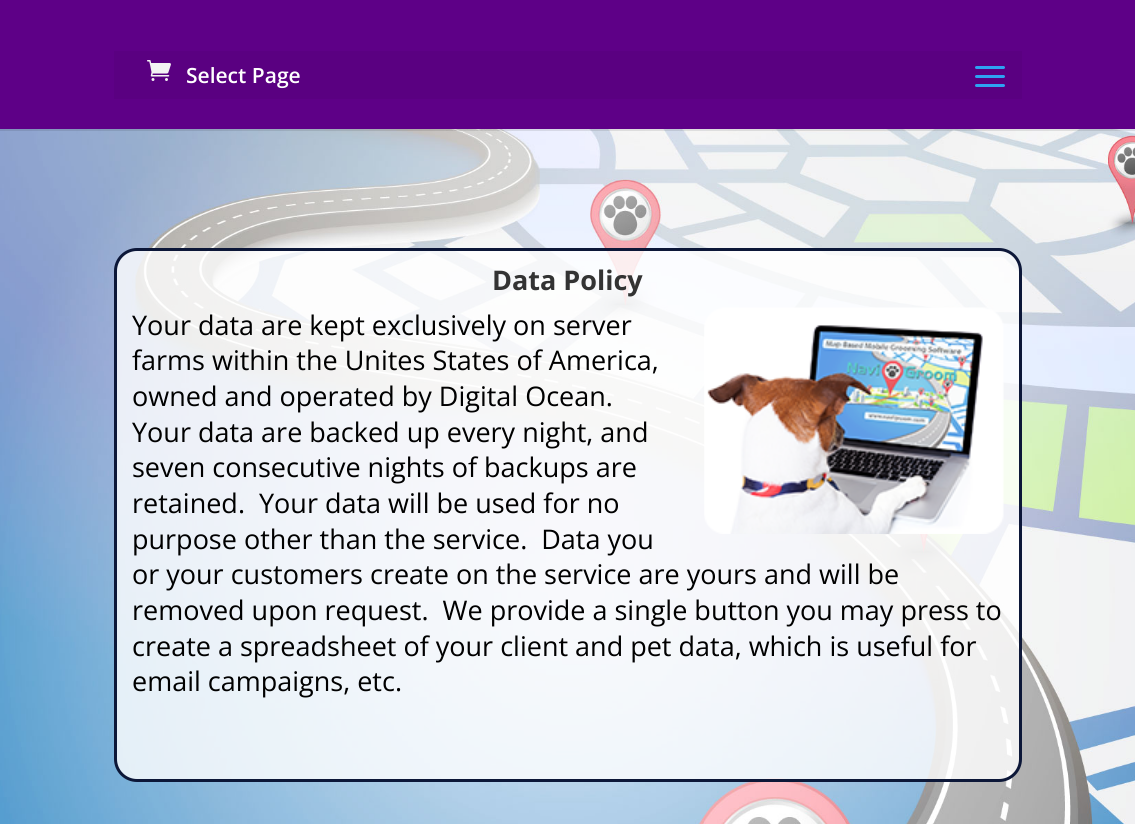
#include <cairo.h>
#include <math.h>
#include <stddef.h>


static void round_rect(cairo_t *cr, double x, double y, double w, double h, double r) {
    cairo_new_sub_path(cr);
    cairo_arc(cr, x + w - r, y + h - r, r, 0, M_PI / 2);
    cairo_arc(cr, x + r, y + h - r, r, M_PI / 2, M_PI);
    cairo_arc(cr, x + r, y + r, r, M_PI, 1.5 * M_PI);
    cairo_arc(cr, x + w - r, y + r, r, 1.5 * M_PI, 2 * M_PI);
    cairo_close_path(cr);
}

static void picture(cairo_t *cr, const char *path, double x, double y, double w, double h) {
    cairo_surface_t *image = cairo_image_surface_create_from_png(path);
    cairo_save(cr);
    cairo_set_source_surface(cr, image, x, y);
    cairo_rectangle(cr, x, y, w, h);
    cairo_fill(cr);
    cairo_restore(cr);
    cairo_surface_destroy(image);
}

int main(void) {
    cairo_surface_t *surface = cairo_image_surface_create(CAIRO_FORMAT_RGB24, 1135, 824);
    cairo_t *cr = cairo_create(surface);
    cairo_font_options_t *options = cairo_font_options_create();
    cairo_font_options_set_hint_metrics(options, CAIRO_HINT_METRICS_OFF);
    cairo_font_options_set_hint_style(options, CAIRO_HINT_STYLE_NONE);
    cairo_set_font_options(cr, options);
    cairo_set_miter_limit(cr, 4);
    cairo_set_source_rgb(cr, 1, 1, 1);
    cairo_paint(cr);
    picture(cr, "img3.png", 0, 129, 1135, 695);
    cairo_set_source_rgba(cr, 0, 0, 0, 0.1);
    cairo_new_path(cr);
    cairo_move_to(cr, 0, 129);
    cairo_line_to(cr, 0, 131);
    cairo_line_to(cr, 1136, 131);
    cairo_line_to(cr, 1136, -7);
    cairo_line_to(cr, 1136, 129);
    cairo_close_path(cr);
    cairo_fill(cr);
    cairo_set_source_rgb(cr, 0.369, 0, 0.529);
    cairo_rectangle(cr, 0, 0, 1135, 129);
    cairo_fill(cr);
    picture(cr, "img1.png", 147, 60, 24, 21);
    cairo_set_source_rgba(cr, 0, 0, 0, 0.05);
    cairo_rectangle(cr, 114, 51, 908, 48);
    cairo_fill(cr);
    cairo_select_font_face(cr, "Open Sans SemiBold", CAIRO_FONT_SLANT_NORMAL, CAIRO_FONT_WEIGHT_NORMAL);
    cairo_set_font_size(cr, 21);
    cairo_set_source_rgb(cr, 1, 1, 1);
    cairo_move_to(cr, 186, 83);
    cairo_show_text(cr, "Select Page");
    picture(cr, "img2.png", 975, 66, 30, 21);
    cairo_set_source_rgba(cr, 1, 1, 1, 0.8);
    round_rect(cr, 115.5, 249.5, 905, 531, 21.5);
    cairo_fill_preserve(cr);
    cairo_set_source_rgb(cr, 0.047, 0.09, 0.22);
    cairo_set_line_width(cr, 3);
    cairo_stroke(cr);
    cairo_select_font_face(cr, "Open Sans", CAIRO_FONT_SLANT_NORMAL, CAIRO_FONT_WEIGHT_BOLD);
    cairo_set_font_size(cr, 27);
    cairo_set_source_rgb(cr, 0.2, 0.2, 0.2);
    cairo_move_to(cr, 492, 290);
    cairo_show_text(cr, "Data Policy");
    cairo_select_font_face(cr, "Open Sans", CAIRO_FONT_SLANT_NORMAL, CAIRO_FONT_WEIGHT_NORMAL);
    cairo_set_source_rgb(cr, 0, 0, 0);
    cairo_move_to(cr, 132, 335);
    cairo_show_text(cr, "Your data are kept exclusively on server");
    picture(cr, "img4.png", 704, 307, 300, 227);
    cairo_move_to(cr, 132, 370);
    cairo_show_text(cr, "farms within the Unites States of America,");
    cairo_move_to(cr, 132, 406);
    cairo_show_text(cr, "owned and operated by Digital Ocean.");
    cairo_move_to(cr, 132, 442);
    cairo_show_text(cr, "Your data are backed up every night, and");
    cairo_move_to(cr, 132, 477);
    cairo_show_text(cr, "seven consecutive nights of backups are");
    cairo_move_to(cr, 132, 513);
    cairo_show_text(cr, "retained.  Your data will be used for no");
    cairo_move_to(cr, 132, 549);
    cairo_show_text(cr, "purpose other than the service.  Data you");
    cairo_move_to(cr, 132, 584);
    cairo_show_text(cr, "or your customers create on the service are yours and will be");
    cairo_move_to(cr, 132, 620);
    cairo_show_text(cr, "removed upon request.  We provide a single button you may press to");
    cairo_move_to(cr, 132, 656);
    cairo_show_text(cr, "create a spreadsheet of your client and pet data, which is useful for");
    cairo_move_to(cr, 132, 691);
    cairo_show_text(cr, "email campaigns, etc.");
    cairo_surface_write_to_png(surface, "page.png");
    cairo_font_options_destroy(options);
    cairo_destroy(cr);
    cairo_surface_destroy(surface);
    return 0;
}
